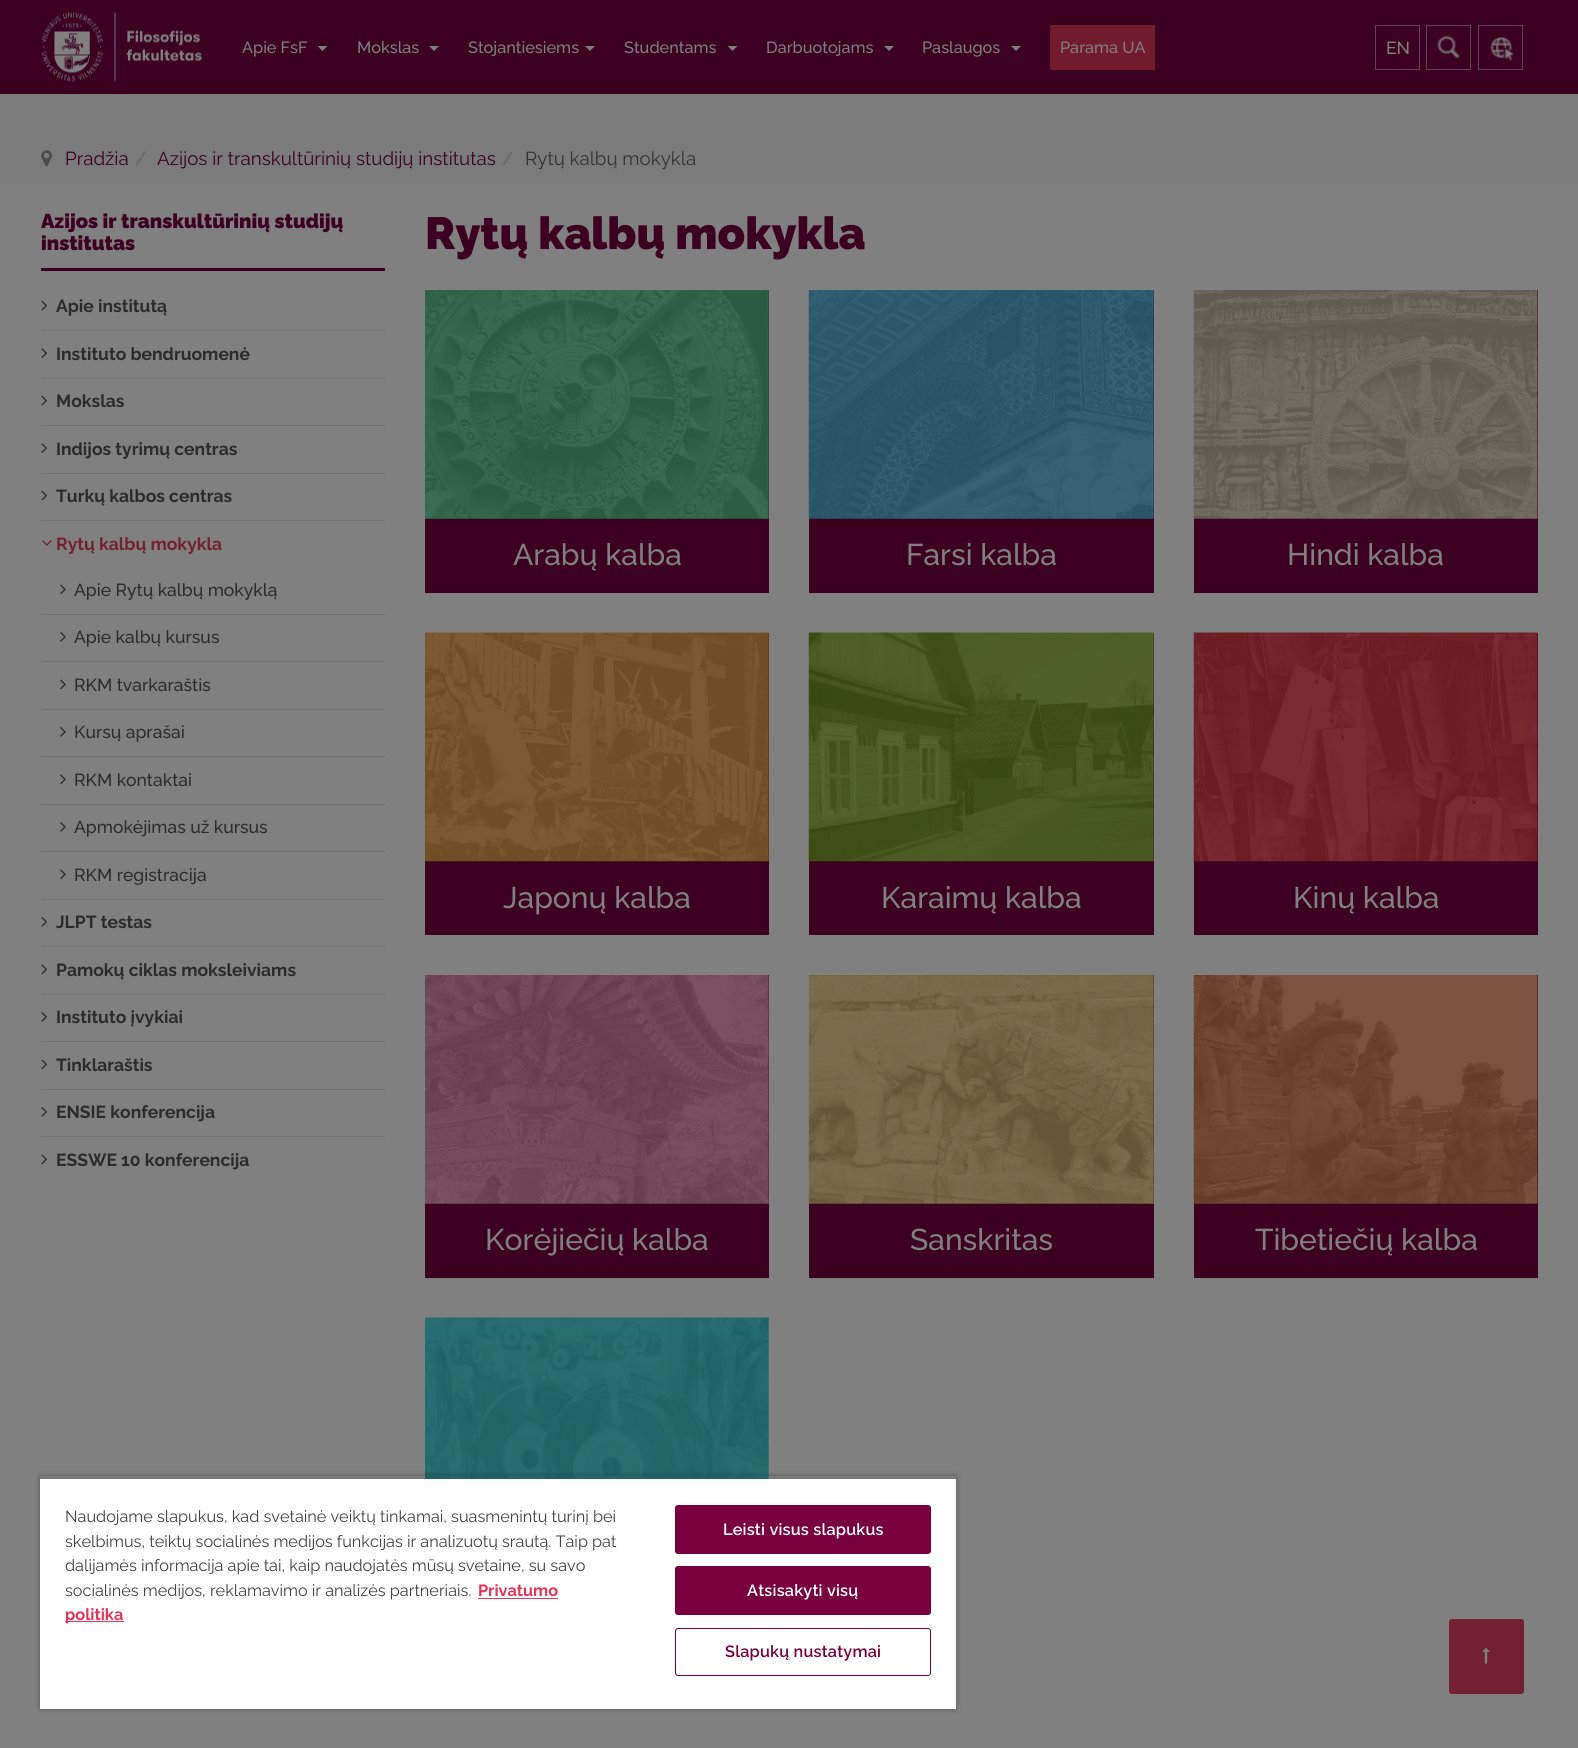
#include <cairo.h>
#include <math.h>
#include <stddef.h>


static void spaced_text(cairo_t *cr, double x, double y, const char *s, double letter, double word) {
    cairo_move_to(cr, x, y);
    while (*s) {
        char ch[5] = {0};
        int n = 0;
        do ch[n++] = *s++; while ((*s & 0xC0) == 0x80);
        cairo_show_text(cr, ch);
        cairo_rel_move_to(cr, letter + word * (*ch == ' '), 0);
    }
}

static void round_rect(cairo_t *cr, double x, double y, double w, double h, double r) {
    cairo_new_sub_path(cr);
    cairo_arc(cr, x + w - r, y + h - r, r, 0, M_PI / 2);
    cairo_arc(cr, x + r, y + h - r, r, M_PI / 2, M_PI);
    cairo_arc(cr, x + r, y + r, r, M_PI, 1.5 * M_PI);
    cairo_arc(cr, x + w - r, y + r, r, 1.5 * M_PI, 2 * M_PI);
    cairo_close_path(cr);
}

static void shadow(cairo_t *cr, double x, double y, double w, double h, double r, double blur, double alpha) {
    cairo_push_group_with_content(cr, CAIRO_CONTENT_ALPHA);
    cairo_set_operator(cr, CAIRO_OPERATOR_SOURCE);
    for (int i = 15; i >= -15 && fmin(w, h) + blur * i / 3 > 0; i -= 2) {
        double e = blur * i / 6;
        cairo_set_source_rgba(cr, 0, 0, 0, alpha * erfc((i - 1) / 8.5) / 2);
        round_rect(cr, x - e, y - e, w + 2 * e, h + 2 * e, fmax(0, fmin(r + e + blur * .6, fmin(w, h) / 2 + e)));
        cairo_fill(cr);
    }
    cairo_pattern_t *soft = cairo_pop_group(cr);
    cairo_mask(cr, soft);
    cairo_pattern_destroy(soft);
}

static void picture(cairo_t *cr, const char *path, double x, double y, double w, double h) {
    cairo_surface_t *image = cairo_image_surface_create_from_png(path);
    cairo_save(cr);
    cairo_set_source_surface(cr, image, x, y);
    cairo_rectangle(cr, x, y, w, h);
    cairo_fill(cr);
    cairo_restore(cr);
    cairo_surface_destroy(image);
}

int main(void) {
    cairo_surface_t *surface = cairo_image_surface_create(CAIRO_FORMAT_RGB24, 1578, 1748);
    cairo_t *cr = cairo_create(surface);
    cairo_font_options_t *options = cairo_font_options_create();
    cairo_font_options_set_hint_metrics(options, CAIRO_HINT_METRICS_OFF);
    cairo_font_options_set_hint_style(options, CAIRO_HINT_STYLE_NONE);
    cairo_set_font_options(cr, options);
    cairo_set_miter_limit(cr, 4);
    cairo_set_source_rgb(cr, 0.502, 0.502, 0.502);
    cairo_paint(cr);
    cairo_set_source_rgb(cr, 0.235, 0, 0.125);
    cairo_rectangle(cr, 0, 0, 1578, 94);
    cairo_fill(cr);
    picture(cr, "img1.png", 41, 12, 161, 70);
    cairo_select_font_face(cr, "Raleway Medium", CAIRO_FONT_SLANT_NORMAL, CAIRO_FONT_WEIGHT_NORMAL);
    cairo_set_font_size(cr, 16.25);
    cairo_set_source_rgb(cr, 0.502, 0.502, 0.502);
    cairo_move_to(cr, 242, 53);
    cairo_show_text(cr, "Apie FsF");
    cairo_new_path(cr);
    cairo_move_to(cr, 317.5, 46);
    cairo_line_to(cr, 327.5, 46);
    cairo_line_to(cr, 322.5, 51);
    cairo_close_path(cr);
    cairo_fill(cr);
    cairo_move_to(cr, 357, 53);
    cairo_show_text(cr, "Mokslas");
    cairo_new_path(cr);
    cairo_move_to(cr, 429, 46);
    cairo_line_to(cr, 439, 46);
    cairo_line_to(cr, 434, 51);
    cairo_close_path(cr);
    cairo_fill(cr);
    cairo_move_to(cr, 468, 53);
    cairo_show_text(cr, "Stojantiesiems");
    cairo_new_path(cr);
    cairo_move_to(cr, 585, 46);
    cairo_line_to(cr, 595, 46);
    cairo_line_to(cr, 590, 51);
    cairo_close_path(cr);
    cairo_fill(cr);
    cairo_move_to(cr, 624, 53);
    cairo_show_text(cr, "Studentams");
    cairo_new_path(cr);
    cairo_move_to(cr, 727.5, 46);
    cairo_line_to(cr, 737.5, 46);
    cairo_line_to(cr, 732.5, 51);
    cairo_close_path(cr);
    cairo_fill(cr);
    cairo_move_to(cr, 766, 53);
    cairo_show_text(cr, "Darbuotojams");
    cairo_new_path(cr);
    cairo_move_to(cr, 884, 46);
    cairo_line_to(cr, 894, 46);
    cairo_line_to(cr, 889, 51);
    cairo_close_path(cr);
    cairo_fill(cr);
    cairo_move_to(cr, 922, 53);
    cairo_show_text(cr, "Paslaugos");
    cairo_new_path(cr);
    cairo_move_to(cr, 1011, 46);
    cairo_line_to(cr, 1021, 46);
    cairo_line_to(cr, 1016, 51);
    cairo_close_path(cr);
    cairo_fill(cr);
    cairo_set_source_rgb(cr, 0.443, 0.106, 0.176);
    cairo_rectangle(cr, 1050, 25, 105, 45);
    cairo_fill(cr);
    cairo_set_source_rgb(cr, 0.502, 0.502, 0.502);
    cairo_move_to(cr, 1060, 53);
    cairo_show_text(cr, "Parama UA");
    cairo_rectangle(cr, 1375.5, 25.5, 44, 44);
    cairo_set_source_rgb(cr, 0.38, 0.263, 0.322);
    cairo_set_line_width(cr, 1);
    cairo_stroke(cr);
    cairo_set_font_size(cr, 17.5);
    cairo_set_source_rgb(cr, 0.502, 0.502, 0.502);
    cairo_move_to(cr, 1386, 54);
    cairo_show_text(cr, "EN");
    picture(cr, "img2.png", 1437, 35, 24, 24);
    cairo_rectangle(cr, 1426.5, 25.5, 44, 44);
    cairo_set_source_rgb(cr, 0.38, 0.263, 0.322);
    cairo_stroke(cr);
    cairo_rectangle(cr, 1478.5, 25.5, 44, 44);
    cairo_stroke(cr);
    picture(cr, "img3.png", 1490, 36, 24, 25);
    cairo_set_source_rgb(cr, 0.482, 0.482, 0.482);
    cairo_rectangle(cr, 0, 94, 1578, 90);
    cairo_fill(cr);
    picture(cr, "img4.png", 41, 150, 11, 17);
    cairo_select_font_face(cr, "Raleway", CAIRO_FONT_SLANT_NORMAL, CAIRO_FONT_WEIGHT_NORMAL);
    cairo_set_font_size(cr, 18.75);
    cairo_set_source_rgb(cr, 0.235, 0, 0.125);
    cairo_move_to(cr, 65, 165);
    cairo_show_text(cr, "Pradžia");
    cairo_set_source_rgb(cr, 0.4, 0.4, 0.4);
    cairo_move_to(cr, 135, 165);
    cairo_show_text(cr, "/");
    cairo_set_source_rgb(cr, 0.235, 0, 0.125);
    cairo_move_to(cr, 157, 165);
    cairo_show_text(cr, "Azijos ir transkultūrinių studijų institutas");
    cairo_set_source_rgb(cr, 0.4, 0.4, 0.4);
    cairo_move_to(cr, 502, 165);
    cairo_show_text(cr, "/");
    cairo_set_source_rgb(cr, 0.2, 0.2, 0.2);
    cairo_move_to(cr, 525, 165);
    cairo_show_text(cr, "Rytų kalbų mokykla");
    cairo_set_source_rgb(cr, 0.235, 0, 0.125);
    cairo_rectangle(cr, 41, 268, 344, 3);
    cairo_fill(cr);
    cairo_select_font_face(cr, "Raleway Black", CAIRO_FONT_SLANT_NORMAL, CAIRO_FONT_WEIGHT_NORMAL);
    cairo_set_font_size(cr, 20);
    cairo_move_to(cr, 41, 228);
    cairo_show_text(cr, "Azijos ir transkultūrinių studijų");
    cairo_move_to(cr, 41, 250);
    cairo_show_text(cr, "institutas");
    cairo_set_source_rgb(cr, 0.467, 0.467, 0.467);
    cairo_rectangle(cr, 41, 330, 344, 1);
    cairo_fill(cr);
    picture(cr, "img5.png", 41, 300, 6, 11);
    cairo_select_font_face(cr, "Raleway", CAIRO_FONT_SLANT_NORMAL, CAIRO_FONT_WEIGHT_BOLD);
    cairo_set_font_size(cr, 17.5);
    cairo_set_source_rgb(cr, 0.169, 0.169, 0.169);
    cairo_move_to(cr, 56, 312);
    cairo_show_text(cr, "Apie institutą");
    cairo_set_source_rgb(cr, 0.467, 0.467, 0.467);
    cairo_rectangle(cr, 41, 378, 344, 1);
    cairo_fill(cr);
    picture(cr, "img6.png", 41, 348, 6, 10);
    cairo_set_source_rgb(cr, 0.169, 0.169, 0.169);
    cairo_move_to(cr, 56, 360);
    cairo_show_text(cr, "Instituto bendruomenė");
    cairo_set_source_rgb(cr, 0.467, 0.467, 0.467);
    cairo_rectangle(cr, 41, 425, 344, 1);
    cairo_fill(cr);
    picture(cr, "img5.png", 41, 395, 6, 11);
    cairo_set_source_rgb(cr, 0.169, 0.169, 0.169);
    cairo_move_to(cr, 56, 407);
    cairo_show_text(cr, "Mokslas");
    cairo_set_source_rgb(cr, 0.467, 0.467, 0.467);
    cairo_rectangle(cr, 41, 473, 344, 1);
    cairo_fill(cr);
    picture(cr, "img6.png", 41, 443, 6, 10);
    cairo_set_source_rgb(cr, 0.169, 0.169, 0.169);
    cairo_move_to(cr, 56, 455);
    cairo_show_text(cr, "Indijos tyrimų centras");
    cairo_set_source_rgb(cr, 0.467, 0.467, 0.467);
    cairo_rectangle(cr, 41, 520, 344, 1);
    cairo_fill(cr);
    picture(cr, "img5.png", 41, 490, 6, 11);
    cairo_set_source_rgb(cr, 0.169, 0.169, 0.169);
    cairo_move_to(cr, 56, 502);
    cairo_show_text(cr, "Turkų kalbos centras");
    cairo_set_source_rgb(cr, 0.467, 0.467, 0.467);
    cairo_rectangle(cr, 41, 899, 344, 1);
    cairo_fill(cr);
    picture(cr, "img7.png", 42, 540, 10, 6);
    cairo_set_source_rgb(cr, 0.451, 0.129, 0.196);
    cairo_move_to(cr, 56, 550);
    cairo_show_text(cr, "Rytų kalbų mokykla");
    cairo_set_source_rgb(cr, 0.451, 0.451, 0.451);
    cairo_rectangle(cr, 41, 614, 344, 1);
    cairo_fill(cr);
    picture(cr, "img8.png", 60, 584, 6, 11);
    cairo_select_font_face(cr, "Raleway Medium", CAIRO_FONT_SLANT_NORMAL, CAIRO_FONT_WEIGHT_NORMAL);
    cairo_set_source_rgb(cr, 0.169, 0.169, 0.169);
    cairo_move_to(cr, 74, 596);
    cairo_show_text(cr, "Apie Rytų kalbų mokyklą");
    cairo_set_source_rgb(cr, 0.451, 0.451, 0.451);
    cairo_rectangle(cr, 41, 661, 344, 1);
    cairo_fill(cr);
    picture(cr, "img9.png", 60, 632, 6, 10);
    cairo_set_source_rgb(cr, 0.169, 0.169, 0.169);
    cairo_move_to(cr, 74, 643);
    cairo_show_text(cr, "Apie kalbų kursus");
    cairo_set_source_rgb(cr, 0.451, 0.451, 0.451);
    cairo_rectangle(cr, 41, 709, 344, 1);
    cairo_fill(cr);
    picture(cr, "img8.png", 60, 679, 6, 11);
    cairo_set_source_rgb(cr, 0.169, 0.169, 0.169);
    cairo_move_to(cr, 74, 691);
    cairo_show_text(cr, "RKM tvarkaraštis");
    cairo_set_source_rgb(cr, 0.451, 0.451, 0.451);
    cairo_rectangle(cr, 41, 756, 344, 1);
    cairo_fill(cr);
    picture(cr, "img9.png", 60, 727, 6, 10);
    cairo_set_source_rgb(cr, 0.169, 0.169, 0.169);
    cairo_move_to(cr, 74, 738);
    cairo_show_text(cr, "Kursų aprašai");
    cairo_set_source_rgb(cr, 0.451, 0.451, 0.451);
    cairo_rectangle(cr, 41, 804, 344, 1);
    cairo_fill(cr);
    picture(cr, "img8.png", 60, 774, 6, 11);
    cairo_set_source_rgb(cr, 0.169, 0.169, 0.169);
    cairo_move_to(cr, 74, 786);
    cairo_show_text(cr, "RKM kontaktai");
    cairo_set_source_rgb(cr, 0.451, 0.451, 0.451);
    cairo_rectangle(cr, 41, 851, 344, 1);
    cairo_fill(cr);
    picture(cr, "img9.png", 60, 822, 6, 10);
    cairo_set_source_rgb(cr, 0.169, 0.169, 0.169);
    cairo_move_to(cr, 74, 833);
    cairo_show_text(cr, "Apmokėjimas už kursus");
    picture(cr, "img8.png", 60, 869, 6, 11);
    cairo_move_to(cr, 74, 881);
    cairo_show_text(cr, "RKM registracija");
    cairo_set_source_rgb(cr, 0.467, 0.467, 0.467);
    cairo_rectangle(cr, 41, 946, 344, 1);
    cairo_fill(cr);
    picture(cr, "img10.png", 41, 917, 6, 10);
    cairo_select_font_face(cr, "Raleway", CAIRO_FONT_SLANT_NORMAL, CAIRO_FONT_WEIGHT_BOLD);
    cairo_set_source_rgb(cr, 0.169, 0.169, 0.169);
    cairo_move_to(cr, 56, 928);
    cairo_show_text(cr, "JLPT testas");
    cairo_set_source_rgb(cr, 0.467, 0.467, 0.467);
    cairo_rectangle(cr, 41, 994, 344, 1);
    cairo_fill(cr);
    picture(cr, "img11.png", 41, 964, 6, 11);
    cairo_set_source_rgb(cr, 0.169, 0.169, 0.169);
    cairo_move_to(cr, 56, 976);
    cairo_show_text(cr, "Pamokų ciklas moksleiviams");
    cairo_set_source_rgb(cr, 0.467, 0.467, 0.467);
    cairo_rectangle(cr, 41, 1041, 344, 1);
    cairo_fill(cr);
    picture(cr, "img10.png", 41, 1012, 6, 10);
    cairo_set_source_rgb(cr, 0.169, 0.169, 0.169);
    cairo_move_to(cr, 56, 1023);
    cairo_show_text(cr, "Instituto įvykiai");
    cairo_set_source_rgb(cr, 0.467, 0.467, 0.467);
    cairo_rectangle(cr, 41, 1089, 344, 1);
    cairo_fill(cr);
    picture(cr, "img11.png", 41, 1059, 6, 11);
    cairo_set_source_rgb(cr, 0.169, 0.169, 0.169);
    cairo_move_to(cr, 56, 1071);
    cairo_show_text(cr, "Tinklaraštis");
    cairo_set_source_rgb(cr, 0.467, 0.467, 0.467);
    cairo_rectangle(cr, 41, 1136, 344, 1);
    cairo_fill(cr);
    picture(cr, "img10.png", 41, 1107, 6, 10);
    cairo_set_source_rgb(cr, 0.169, 0.169, 0.169);
    cairo_move_to(cr, 56, 1118);
    cairo_show_text(cr, "ENSIE konferencija");
    picture(cr, "img11.png", 41, 1154, 6, 11);
    cairo_move_to(cr, 56, 1166);
    cairo_show_text(cr, "ESSWE 10 konferencija");
    cairo_select_font_face(cr, "Raleway Black", CAIRO_FONT_SLANT_NORMAL, CAIRO_FONT_WEIGHT_NORMAL);
    cairo_set_font_size(cr, 45);
    cairo_set_source_rgb(cr, 0.235, 0, 0.125);
    cairo_move_to(cr, 425, 249);
    cairo_show_text(cr, "Rytų kalbų mokykla");
    cairo_rectangle(cr, 425, 290, 344, 303);
    cairo_fill(cr);
    picture(cr, "img12.png", 425, 290, 344, 229);
    cairo_select_font_face(cr, "Raleway Medium", CAIRO_FONT_SLANT_NORMAL, CAIRO_FONT_WEIGHT_NORMAL);
    cairo_set_font_size(cr, 30);
    cairo_set_source_rgb(cr, 0.502, 0.502, 0.502);
    cairo_move_to(cr, 513, 565);
    cairo_show_text(cr, "Arabų kalba");
    cairo_set_source_rgb(cr, 0.235, 0, 0.125);
    cairo_rectangle(cr, 809, 290, 345, 303);
    cairo_fill(cr);
    picture(cr, "img13.png", 808, 290, 346, 229);
    cairo_set_source_rgb(cr, 0.502, 0.502, 0.502);
    cairo_move_to(cr, 906, 565);
    cairo_show_text(cr, "Farsi kalba");
    cairo_set_source_rgb(cr, 0.235, 0, 0.125);
    cairo_rectangle(cr, 1194, 290, 344, 303);
    cairo_fill(cr);
    picture(cr, "img14.png", 1193, 290, 345, 229);
    cairo_set_source_rgb(cr, 0.502, 0.502, 0.502);
    cairo_move_to(cr, 1287, 565);
    cairo_show_text(cr, "Hindi kalba");
    cairo_set_source_rgb(cr, 0.235, 0, 0.125);
    cairo_rectangle(cr, 425, 633, 344, 302);
    cairo_fill(cr);
    picture(cr, "img15.png", 425, 632, 344, 230);
    cairo_set_source_rgb(cr, 0.502, 0.502, 0.502);
    cairo_move_to(cr, 503, 908);
    cairo_show_text(cr, "Japonų kalba");
    cairo_set_source_rgb(cr, 0.235, 0, 0.125);
    cairo_rectangle(cr, 809, 633, 345, 302);
    cairo_fill(cr);
    picture(cr, "img16.png", 808, 632, 346, 230);
    cairo_set_source_rgb(cr, 0.502, 0.502, 0.502);
    cairo_move_to(cr, 881, 908);
    cairo_show_text(cr, "Karaimų kalba");
    cairo_set_source_rgb(cr, 0.235, 0, 0.125);
    cairo_rectangle(cr, 1194, 633, 344, 302);
    cairo_fill(cr);
    picture(cr, "img17.png", 1193, 632, 345, 230);
    cairo_set_source_rgb(cr, 0.502, 0.502, 0.502);
    cairo_move_to(cr, 1293, 908);
    cairo_show_text(cr, "Kinų kalba");
    cairo_set_source_rgb(cr, 0.235, 0, 0.125);
    cairo_rectangle(cr, 425, 975, 344, 303);
    cairo_fill(cr);
    picture(cr, "img18.png", 425, 975, 344, 229);
    cairo_set_source_rgb(cr, 0.502, 0.502, 0.502);
    cairo_move_to(cr, 485, 1250);
    cairo_show_text(cr, "Korėjiečių kalba");
    cairo_set_source_rgb(cr, 0.235, 0, 0.125);
    cairo_rectangle(cr, 809, 975, 345, 303);
    cairo_fill(cr);
    picture(cr, "img19.png", 808, 975, 346, 229);
    cairo_set_source_rgb(cr, 0.502, 0.502, 0.502);
    cairo_move_to(cr, 910, 1250);
    cairo_show_text(cr, "Sanskritas");
    cairo_set_source_rgb(cr, 0.235, 0, 0.125);
    cairo_rectangle(cr, 1194, 975, 344, 303);
    cairo_fill(cr);
    picture(cr, "img20.png", 1193, 975, 345, 229);
    cairo_set_source_rgb(cr, 0.502, 0.502, 0.502);
    cairo_move_to(cr, 1255, 1250);
    cairo_show_text(cr, "Tibetiečių kalba");
    picture(cr, "img21.png", 425, 1317, 344, 162);
    cairo_set_source_rgb(cr, 0.451, 0.129, 0.196);
    round_rect(cr, 1449.5, 1619.5, 74, 74, 2.5);
    cairo_fill_preserve(cr);
    cairo_stroke(cr);
    picture(cr, "img22.png", 1482, 1648, 8, 16);
    cairo_save(cr);
    cairo_set_fill_rule(cr, CAIRO_FILL_RULE_EVEN_ODD);
    cairo_new_path(cr);
    cairo_move_to(cr, 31, 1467);
    cairo_line_to(cr, 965, 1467);
    cairo_line_to(cr, 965, 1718);
    cairo_line_to(cr, 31, 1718);
    cairo_close_path(cr);
    cairo_move_to(cr, 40, 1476);
    cairo_line_to(cr, 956, 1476);
    cairo_line_to(cr, 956, 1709);
    cairo_line_to(cr, 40, 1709);
    cairo_close_path(cr);
    cairo_clip(cr);
    cairo_set_source_rgb(cr, 0, 0, 0);
    shadow(cr, 40, 1476, 916, 233, 0, 2.5, 0.35);
    cairo_restore(cr);
    cairo_save(cr);
    cairo_rectangle(cr, 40, 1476, 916, 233);
    cairo_clip(cr);
    cairo_set_source_rgb(cr, 0, 0, 0);
    shadow(cr, 40, 1479, 916, 230, 0, 2.5, 0.2);
    cairo_restore(cr);
    cairo_set_source_rgb(cr, 1, 1, 1);
    cairo_rectangle(cr, 40, 1479, 916, 230);
    cairo_fill(cr);
    cairo_select_font_face(cr, "Raleway", CAIRO_FONT_SLANT_NORMAL, CAIRO_FONT_WEIGHT_NORMAL);
    cairo_set_font_size(cr, 16.25);
    cairo_set_source_rgb(cr, 0.255, 0.255, 0.255);
    cairo_move_to(cr, 65, 1522);
    cairo_show_text(cr, "Naudojame slapukus, kad svetainė veiktų tinkamai, suasmenintų turinį bei");
    cairo_move_to(cr, 65, 1547);
    cairo_show_text(cr, "skelbimus, teiktų socialinės medijos funkcijas ir analizuotų srautą. Taip pat");
    cairo_move_to(cr, 65, 1571);
    cairo_show_text(cr, "dalijamės informacija apie tai, kaip naudojatės mūsų svetaine, su savo");
    cairo_move_to(cr, 65, 1596);
    cairo_show_text(cr, "socialinės medijos, reklamavimo ir analizės partneriais.");
    cairo_select_font_face(cr, "Raleway", CAIRO_FONT_SLANT_NORMAL, CAIRO_FONT_WEIGHT_BOLD);
    cairo_set_source_rgb(cr, 0.882, 0.208, 0.349);
    cairo_move_to(cr, 478, 1596);
    cairo_show_text(cr, "Privatumo");
    cairo_rectangle(cr, 478, 1598, 80, 1);
    cairo_fill(cr);
    cairo_rectangle(cr, 65, 1621, 59, 1);
    cairo_fill(cr);
    cairo_move_to(cr, 65, 1620);
    cairo_show_text(cr, "politika");
    cairo_set_source_rgb(cr, 0.471, 0, 0.247);
    round_rect(cr, 675.5, 1505.5, 255, 48, 2.5);
    cairo_fill_preserve(cr);
    cairo_stroke(cr);
    cairo_select_font_face(cr, "Raleway SemiBold", CAIRO_FONT_SLANT_NORMAL, CAIRO_FONT_WEIGHT_NORMAL);
    cairo_set_source_rgb(cr, 1, 1, 1);
    spaced_text(cr, 723, 1535, "Leisti visus slapukus", 0.2, 0);
    cairo_set_source_rgb(cr, 0.471, 0, 0.247);
    round_rect(cr, 675.5, 1566.5, 255, 48, 2.5);
    cairo_fill_preserve(cr);
    cairo_stroke(cr);
    cairo_set_source_rgb(cr, 1, 1, 1);
    spaced_text(cr, 747, 1596, "Atsisakyti visų", 0.2, 0);
    round_rect(cr, 675.5, 1628.5, 255, 47, 2.5);
    cairo_set_source_rgb(cr, 0.471, 0, 0.247);
    cairo_stroke(cr);
    spaced_text(cr, 725, 1657, "Slapukų nustatymai", 0.2, 0);
    cairo_surface_write_to_png(surface, "page.png");
    cairo_font_options_destroy(options);
    cairo_destroy(cr);
    cairo_surface_destroy(surface);
    return 0;
}
